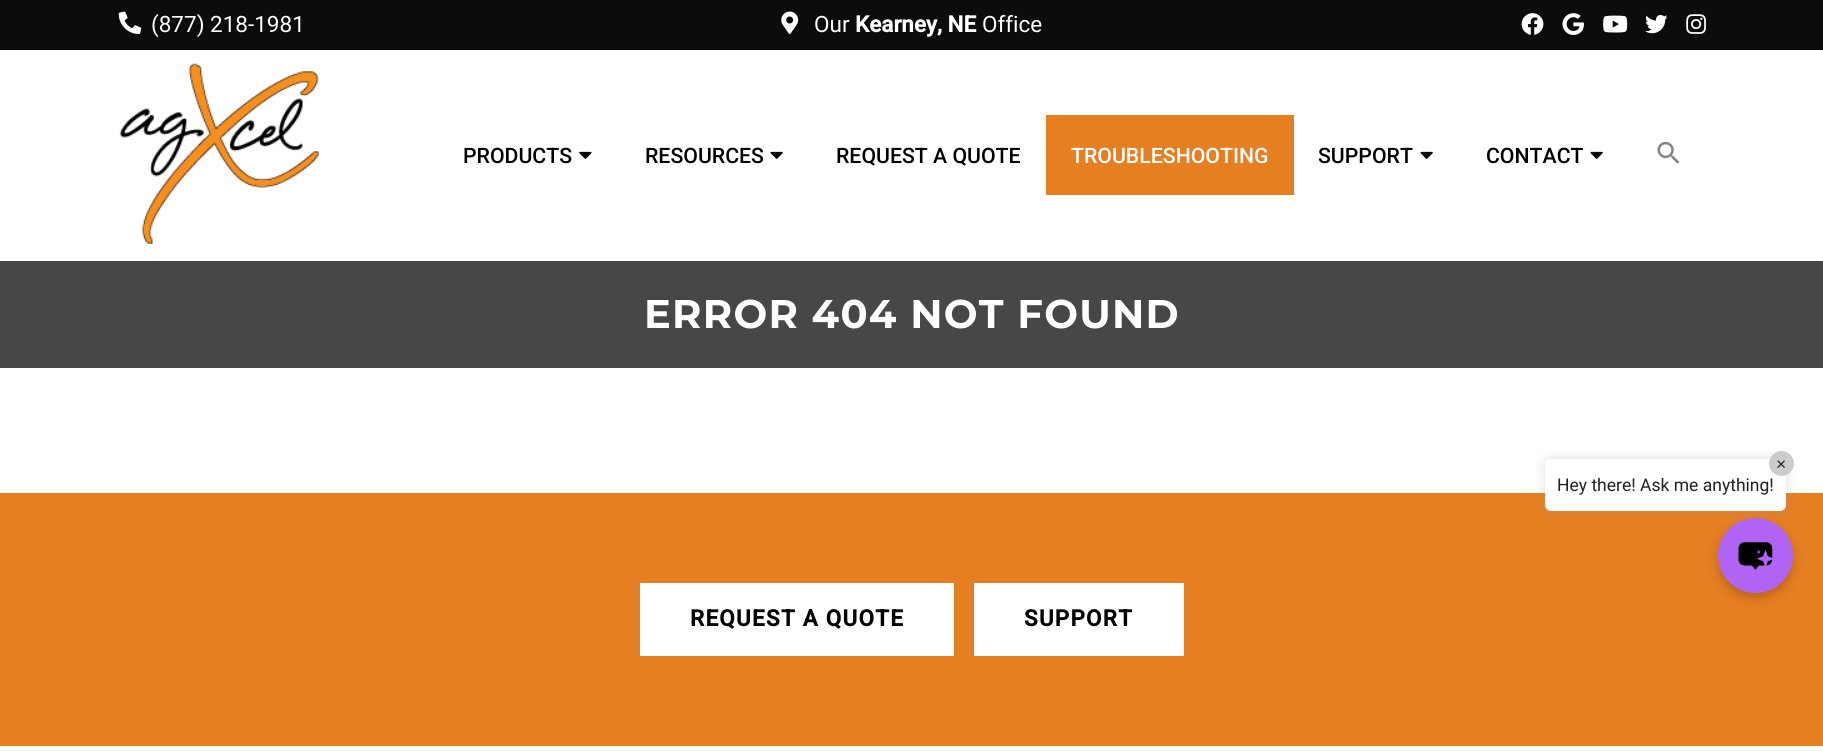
#include <cairo.h>
#include <math.h>
#include <stddef.h>


static void spaced_text(cairo_t *cr, double x, double y, const char *s, double letter, double word) {
    cairo_move_to(cr, x, y);
    while (*s) {
        char ch[5] = {0};
        int n = 0;
        do ch[n++] = *s++; while ((*s & 0xC0) == 0x80);
        cairo_show_text(cr, ch);
        cairo_rel_move_to(cr, letter + word * (*ch == ' '), 0);
    }
}

static void round_rect(cairo_t *cr, double x, double y, double w, double h, double r) {
    cairo_new_sub_path(cr);
    cairo_arc(cr, x + w - r, y + h - r, r, 0, M_PI / 2);
    cairo_arc(cr, x + r, y + h - r, r, M_PI / 2, M_PI);
    cairo_arc(cr, x + r, y + r, r, M_PI, 1.5 * M_PI);
    cairo_arc(cr, x + w - r, y + r, r, 1.5 * M_PI, 2 * M_PI);
    cairo_close_path(cr);
}

static void shadow(cairo_t *cr, double x, double y, double w, double h, double r, double blur, double alpha) {
    cairo_push_group_with_content(cr, CAIRO_CONTENT_ALPHA);
    cairo_set_operator(cr, CAIRO_OPERATOR_SOURCE);
    for (int i = 15; i >= -15 && fmin(w, h) + blur * i / 3 > 0; i -= 2) {
        double e = blur * i / 6;
        cairo_set_source_rgba(cr, 0, 0, 0, alpha * erfc((i - 1) / 8.5) / 2);
        round_rect(cr, x - e, y - e, w + 2 * e, h + 2 * e, fmax(0, fmin(r + e + blur * .6, fmin(w, h) / 2 + e)));
        cairo_fill(cr);
    }
    cairo_pattern_t *soft = cairo_pop_group(cr);
    cairo_mask(cr, soft);
    cairo_pattern_destroy(soft);
}

static void picture(cairo_t *cr, const char *path, double x, double y, double w, double h) {
    cairo_surface_t *image = cairo_image_surface_create_from_png(path);
    cairo_save(cr);
    cairo_set_source_surface(cr, image, x, y);
    cairo_rectangle(cr, x, y, w, h);
    cairo_fill(cr);
    cairo_restore(cr);
    cairo_surface_destroy(image);
}

int main(void) {
    cairo_surface_t *surface = cairo_image_surface_create(CAIRO_FORMAT_RGB24, 1823, 754);
    cairo_t *cr = cairo_create(surface);
    cairo_font_options_t *options = cairo_font_options_create();
    cairo_font_options_set_hint_metrics(options, CAIRO_HINT_METRICS_OFF);
    cairo_font_options_set_hint_style(options, CAIRO_HINT_STYLE_NONE);
    cairo_set_font_options(cr, options);
    cairo_set_miter_limit(cr, 4);
    cairo_set_source_rgb(cr, 1, 1, 1);
    cairo_paint(cr);
    cairo_set_source_rgb(cr, 0.047, 0.047, 0.047);
    cairo_rectangle(cr, 0, 0, 1823, 50);
    cairo_fill(cr);
    picture(cr, "img1.png", 118, 11, 24, 24);
    cairo_select_font_face(cr, "Roboto", CAIRO_FONT_SLANT_NORMAL, CAIRO_FONT_WEIGHT_NORMAL);
    cairo_set_font_size(cr, 22.5);
    cairo_set_source_rgb(cr, 1, 1, 1);
    cairo_move_to(cr, 151, 32);
    cairo_show_text(cr, "(877) 218-1981");
    picture(cr, "img2.png", 781, 11, 18, 23);
    cairo_move_to(cr, 814, 32);
    cairo_show_text(cr, "Our");
    cairo_select_font_face(cr, "Roboto", CAIRO_FONT_SLANT_NORMAL, CAIRO_FONT_WEIGHT_BOLD);
    cairo_move_to(cr, 855, 32);
    cairo_show_text(cr, "Kearney, NE");
    cairo_select_font_face(cr, "Roboto", CAIRO_FONT_SLANT_NORMAL, CAIRO_FONT_WEIGHT_NORMAL);
    cairo_move_to(cr, 982, 32);
    cairo_show_text(cr, "Office");
    picture(cr, "img3.png", 1521, 13, 23, 22);
    picture(cr, "img4.png", 1562, 13, 22, 22);
    picture(cr, "img5.png", 1603, 15, 25, 18);
    picture(cr, "img6.png", 1645, 14, 23, 20);
    picture(cr, "img7.png", 1686, 14, 20, 20);
    picture(cr, "img8.png", 119, 63, 200, 181);
    cairo_select_font_face(cr, "Roboto Medium", CAIRO_FONT_SLANT_NORMAL, CAIRO_FONT_WEIGHT_NORMAL);
    cairo_set_font_size(cr, 21.25);
    cairo_set_source_rgb(cr, 0, 0, 0);
    cairo_move_to(cr, 463, 163);
    cairo_show_text(cr, "PRODUCTS");
    picture(cr, "img9.png", 579, 151, 13, 8);
    cairo_move_to(cr, 645, 163);
    cairo_show_text(cr, "RESOURCES");
    picture(cr, "img10.png", 770, 151, 13, 8);
    cairo_move_to(cr, 836, 163);
    cairo_show_text(cr, "REQUEST A QUOTE");
    cairo_set_source_rgb(cr, 0.902, 0.494, 0.133);
    cairo_rectangle(cr, 1046, 115, 248, 80);
    cairo_fill(cr);
    cairo_set_source_rgb(cr, 1, 1, 1);
    cairo_move_to(cr, 1071, 163);
    cairo_show_text(cr, "TROUBLESHOOTING");
    cairo_set_source_rgb(cr, 0, 0, 0);
    cairo_move_to(cr, 1318, 163);
    cairo_show_text(cr, "SUPPORT");
    picture(cr, "img10.png", 1420, 151, 13, 8);
    cairo_move_to(cr, 1486, 163);
    cairo_show_text(cr, "CONTACT");
    picture(cr, "img10.png", 1590, 151, 13, 8);
    picture(cr, "img11.png", 1657, 141, 23, 23);
    cairo_set_source_rgb(cr, 0.278, 0.278, 0.278);
    cairo_rectangle(cr, 0, 261, 1823, 107);
    cairo_fill(cr);
    cairo_select_font_face(cr, "Montserrat", CAIRO_FONT_SLANT_NORMAL, CAIRO_FONT_WEIGHT_BOLD);
    cairo_set_font_size(cr, 40);
    cairo_set_source_rgb(cr, 1, 1, 1);
    spaced_text(cr, 644, 328, "ERROR 404 NOT FOUND", 1.25, 0);
    cairo_set_source_rgb(cr, 0.902, 0.494, 0.133);
    cairo_rectangle(cr, 0, 493, 1823, 253);
    cairo_fill(cr);
    cairo_set_source_rgb(cr, 1, 1, 1);
    cairo_rectangle(cr, 640, 583, 314, 73);
    cairo_fill(cr);
    cairo_select_font_face(cr, "Roboto", CAIRO_FONT_SLANT_NORMAL, CAIRO_FONT_WEIGHT_BOLD);
    cairo_set_font_size(cr, 22.5);
    cairo_set_source_rgb(cr, 0, 0, 0);
    spaced_text(cr, 690, 626, "REQUEST A QUOTE", 1.25, 0);
    cairo_set_source_rgb(cr, 1, 1, 1);
    cairo_rectangle(cr, 974, 583, 210, 73);
    cairo_fill(cr);
    cairo_set_source_rgb(cr, 0, 0, 0);
    spaced_text(cr, 1024, 626, "SUPPORT", 1.25, 0);
    cairo_set_source_rgb(cr, 0.588, 0.588, 0.588);
    shadow(cr, 1545, 459, 241, 52, 6, 6, 0.3);
    cairo_set_source_rgb(cr, 1, 1, 1);
    round_rect(cr, 1545, 459, 241, 52, 6);
    cairo_fill(cr);
    cairo_set_source_rgb(cr, 0.8, 0.8, 0.8);
    cairo_arc(cr, 1781.5, 463.5, 12.5, 0, 2 * M_PI);
    cairo_fill(cr);
    cairo_select_font_face(cr, "Liberation Sans", CAIRO_FONT_SLANT_NORMAL, CAIRO_FONT_WEIGHT_NORMAL);
    cairo_set_font_size(cr, 17.5);
    cairo_set_source_rgb(cr, 0.129, 0.129, 0.129);
    cairo_move_to(cr, 1776, 470);
    cairo_show_text(cr, "×");
    cairo_select_font_face(cr, "Roboto", CAIRO_FONT_SLANT_NORMAL, CAIRO_FONT_WEIGHT_NORMAL);
    cairo_move_to(cr, 1557, 491);
    cairo_show_text(cr, "Hey there! Ask me anything!");
    cairo_set_source_rgb(cr, 0, 0, 0);
    shadow(cr, 1718, 523, 75, 75, 37.5, 5, 0.2);
    cairo_set_source_rgb(cr, 0.694, 0.392, 0.957);
    cairo_arc(cr, 1755.5, 555.5, 37.5, 0, 2 * M_PI);
    cairo_fill(cr);
    picture(cr, "img12.png", 1738, 542, 35, 28);
    cairo_surface_write_to_png(surface, "page.png");
    cairo_font_options_destroy(options);
    cairo_destroy(cr);
    cairo_surface_destroy(surface);
    return 0;
}
